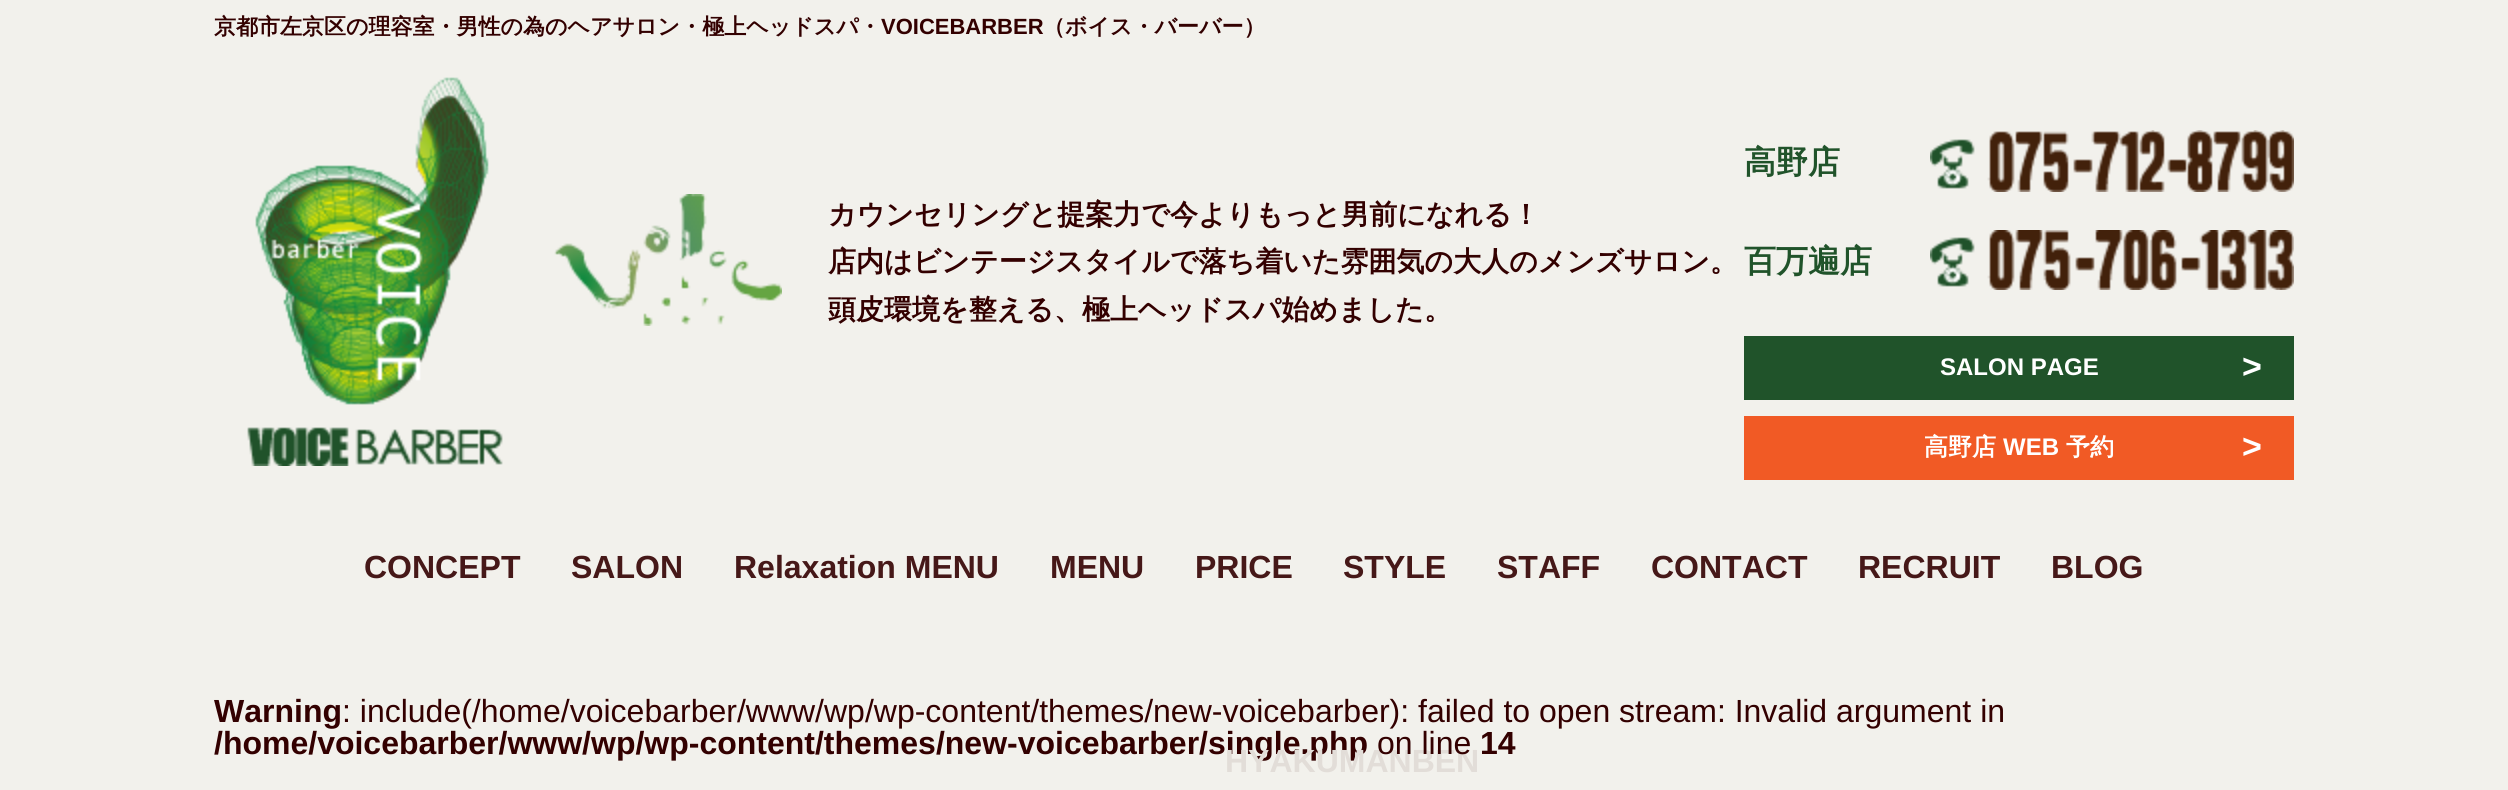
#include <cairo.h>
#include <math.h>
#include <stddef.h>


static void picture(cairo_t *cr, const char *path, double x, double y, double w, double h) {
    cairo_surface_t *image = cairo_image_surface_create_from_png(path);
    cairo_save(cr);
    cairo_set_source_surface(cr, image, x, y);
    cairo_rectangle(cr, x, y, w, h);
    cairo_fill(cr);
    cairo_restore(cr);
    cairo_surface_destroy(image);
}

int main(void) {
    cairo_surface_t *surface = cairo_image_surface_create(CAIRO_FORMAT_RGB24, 2508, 790);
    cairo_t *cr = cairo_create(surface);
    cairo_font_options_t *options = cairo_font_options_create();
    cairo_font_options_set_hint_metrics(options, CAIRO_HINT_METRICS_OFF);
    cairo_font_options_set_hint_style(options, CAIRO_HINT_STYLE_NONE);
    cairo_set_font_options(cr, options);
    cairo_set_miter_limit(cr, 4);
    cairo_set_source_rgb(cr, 0.949, 0.945, 0.925);
    cairo_paint(cr);
    cairo_select_font_face(cr, "WenQuanYi Zen Hei", CAIRO_FONT_SLANT_NORMAL, CAIRO_FONT_WEIGHT_BOLD);
    cairo_set_font_size(cr, 22);
    cairo_set_source_rgb(cr, 0.2, 0, 0);
    cairo_move_to(cr, 214, 34);
    cairo_show_text(cr, "京都市左京区の理容室・男性の為のヘアサロン・極上ヘッドスパ・");
    cairo_select_font_face(cr, "Liberation Sans", CAIRO_FONT_SLANT_NORMAL, CAIRO_FONT_WEIGHT_BOLD);
    cairo_move_to(cr, 881, 34);
    cairo_show_text(cr, "VOICEBARBER");
    cairo_select_font_face(cr, "WenQuanYi Zen Hei", CAIRO_FONT_SLANT_NORMAL, CAIRO_FONT_WEIGHT_BOLD);
    cairo_move_to(cr, 1043, 34);
    cairo_show_text(cr, "（ボイス・バーバー）");
    picture(cr, "img1.png", 247, 77, 256, 389);
    picture(cr, "img2.png", 554, 194, 228, 132);
    cairo_set_font_size(cr, 28);
    cairo_move_to(cr, 828, 224);
    cairo_show_text(cr, "カウンセリングと提案力で今よりもっと男前になれる！");
    cairo_move_to(cr, 828, 271);
    cairo_show_text(cr, "店内はビンテージスタイルで落ち着いた雰囲気の大人のメンズサロン。");
    cairo_move_to(cr, 828, 319);
    cairo_show_text(cr, "頭皮環境を整える、極上ヘッドスパ始めました。");
    cairo_set_font_size(cr, 32);
    cairo_set_source_rgb(cr, 0.125, 0.325, 0.165);
    cairo_move_to(cr, 1744, 173);
    cairo_show_text(cr, "高野店");
    picture(cr, "img3.png", 1930, 130, 364, 62);
    cairo_move_to(cr, 1744, 272);
    cairo_show_text(cr, "百万遍店");
    picture(cr, "img4.png", 1930, 230, 364, 60);
    cairo_rectangle(cr, 1744, 336, 550, 64);
    cairo_fill(cr);
    cairo_select_font_face(cr, "Liberation Sans", CAIRO_FONT_SLANT_NORMAL, CAIRO_FONT_WEIGHT_BOLD);
    cairo_set_font_size(cr, 24);
    cairo_set_source_rgb(cr, 1, 1, 1);
    cairo_move_to(cr, 1940, 375);
    cairo_show_text(cr, "SALON PAGE");
    cairo_set_font_size(cr, 34);
    cairo_move_to(cr, 2242, 378);
    cairo_show_text(cr, ">");
    cairo_set_source_rgb(cr, 0.945, 0.353, 0.145);
    cairo_rectangle(cr, 1744, 416, 550, 64);
    cairo_fill(cr);
    cairo_select_font_face(cr, "WenQuanYi Zen Hei", CAIRO_FONT_SLANT_NORMAL, CAIRO_FONT_WEIGHT_BOLD);
    cairo_set_font_size(cr, 24);
    cairo_set_source_rgb(cr, 1, 1, 1);
    cairo_move_to(cr, 1924, 455);
    cairo_show_text(cr, "高野店");
    cairo_select_font_face(cr, "Liberation Sans", CAIRO_FONT_SLANT_NORMAL, CAIRO_FONT_WEIGHT_BOLD);
    cairo_move_to(cr, 2003, 455);
    cairo_show_text(cr, "WEB");
    cairo_select_font_face(cr, "WenQuanYi Zen Hei", CAIRO_FONT_SLANT_NORMAL, CAIRO_FONT_WEIGHT_BOLD);
    cairo_move_to(cr, 2066, 455);
    cairo_show_text(cr, "予約");
    cairo_select_font_face(cr, "Liberation Sans", CAIRO_FONT_SLANT_NORMAL, CAIRO_FONT_WEIGHT_BOLD);
    cairo_set_font_size(cr, 34);
    cairo_move_to(cr, 2242, 458);
    cairo_show_text(cr, ">");
    cairo_set_font_size(cr, 32);
    cairo_set_source_rgb(cr, 0.2, 0, 0);
    cairo_move_to(cr, 214, 722);
    cairo_show_text(cr, "Warning");
    cairo_set_source_rgb(cr, 0.275, 0.094, 0.094);
    cairo_move_to(cr, 364, 578);
    cairo_show_text(cr, "CONCEPT");
    cairo_move_to(cr, 571, 578);
    cairo_show_text(cr, "SALON");
    cairo_move_to(cr, 734, 578);
    cairo_show_text(cr, "Relaxation MENU");
    cairo_move_to(cr, 1195, 578);
    cairo_show_text(cr, "PRICE");
    cairo_set_source_rgb(cr, 0.2, 0, 0);
    cairo_move_to(cr, 214, 754);
    cairo_show_text(cr, "/home/voicebarber/www/wp/wp-content/themes/new-voicebarber/single.php");
    cairo_set_source_rgb(cr, 0.886, 0.867, 0.847);
    cairo_move_to(cr, 1225, 772);
    cairo_show_text(cr, "HYAKUMANBEN");
    cairo_set_source_rgb(cr, 0.275, 0.094, 0.094);
    cairo_move_to(cr, 1050, 578);
    cairo_show_text(cr, "MENU");
    cairo_move_to(cr, 1343, 578);
    cairo_show_text(cr, "STYLE");
    cairo_move_to(cr, 1497, 578);
    cairo_show_text(cr, "STAFF");
    cairo_move_to(cr, 1651, 578);
    cairo_show_text(cr, "CONTACT");
    cairo_move_to(cr, 1858, 578);
    cairo_show_text(cr, "RECRUIT");
    cairo_move_to(cr, 2051, 578);
    cairo_show_text(cr, "BLOG");
    cairo_select_font_face(cr, "Liberation Sans", CAIRO_FONT_SLANT_NORMAL, CAIRO_FONT_WEIGHT_NORMAL);
    cairo_set_source_rgb(cr, 0.2, 0, 0);
    cairo_move_to(cr, 342, 722);
    cairo_show_text(cr, ": include(/home/voicebarber/www/wp/wp-content/themes/new-voicebarber): failed to open stream: Invalid argument in");
    cairo_move_to(cr, 1377, 754);
    cairo_show_text(cr, "on line");
    cairo_select_font_face(cr, "Liberation Sans", CAIRO_FONT_SLANT_NORMAL, CAIRO_FONT_WEIGHT_BOLD);
    cairo_move_to(cr, 1480, 754);
    cairo_show_text(cr, "14");
    cairo_surface_write_to_png(surface, "page.png");
    cairo_font_options_destroy(options);
    cairo_destroy(cr);
    cairo_surface_destroy(surface);
    return 0;
}
